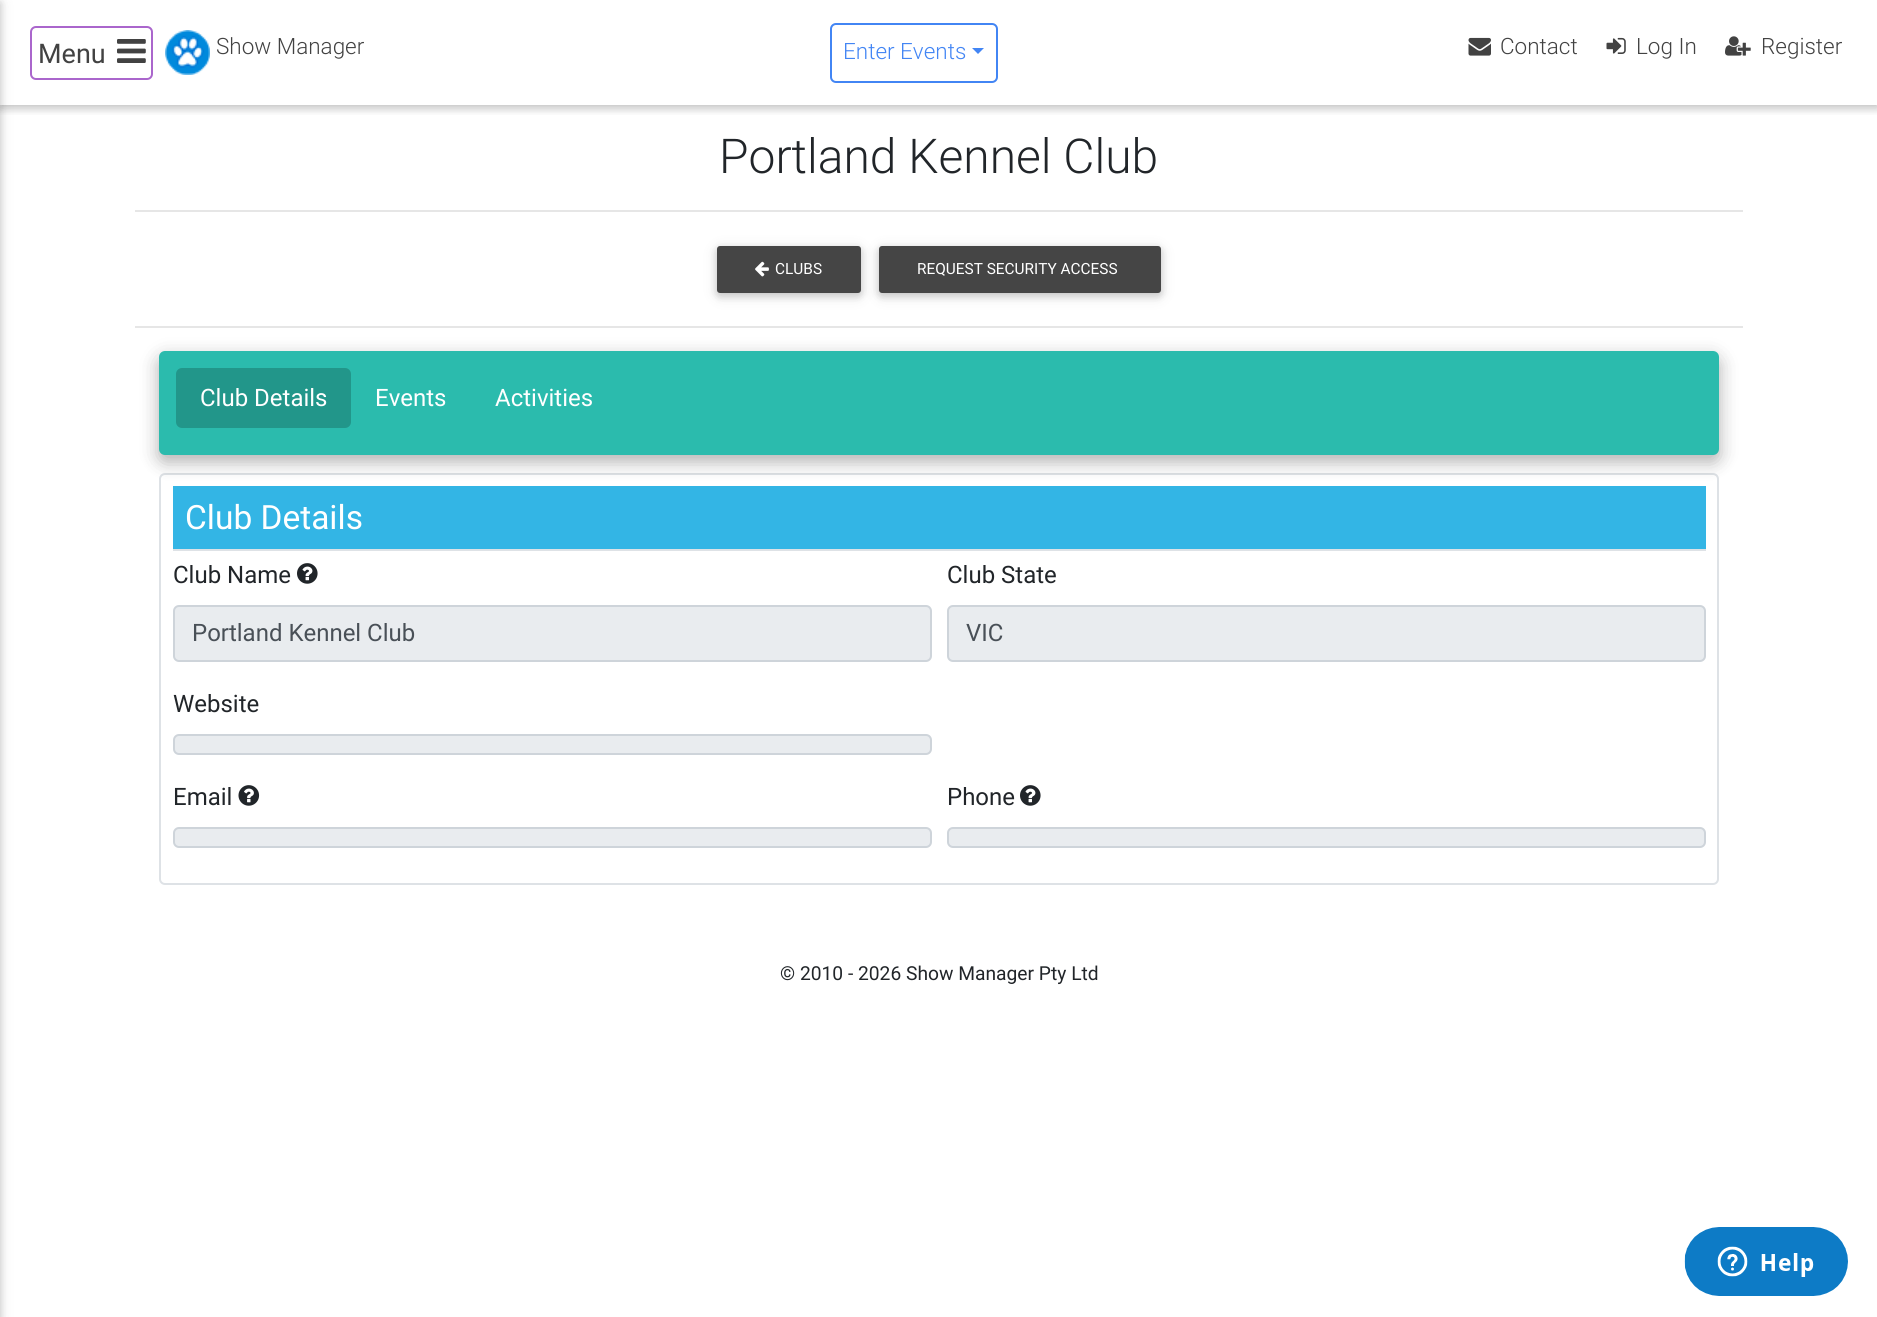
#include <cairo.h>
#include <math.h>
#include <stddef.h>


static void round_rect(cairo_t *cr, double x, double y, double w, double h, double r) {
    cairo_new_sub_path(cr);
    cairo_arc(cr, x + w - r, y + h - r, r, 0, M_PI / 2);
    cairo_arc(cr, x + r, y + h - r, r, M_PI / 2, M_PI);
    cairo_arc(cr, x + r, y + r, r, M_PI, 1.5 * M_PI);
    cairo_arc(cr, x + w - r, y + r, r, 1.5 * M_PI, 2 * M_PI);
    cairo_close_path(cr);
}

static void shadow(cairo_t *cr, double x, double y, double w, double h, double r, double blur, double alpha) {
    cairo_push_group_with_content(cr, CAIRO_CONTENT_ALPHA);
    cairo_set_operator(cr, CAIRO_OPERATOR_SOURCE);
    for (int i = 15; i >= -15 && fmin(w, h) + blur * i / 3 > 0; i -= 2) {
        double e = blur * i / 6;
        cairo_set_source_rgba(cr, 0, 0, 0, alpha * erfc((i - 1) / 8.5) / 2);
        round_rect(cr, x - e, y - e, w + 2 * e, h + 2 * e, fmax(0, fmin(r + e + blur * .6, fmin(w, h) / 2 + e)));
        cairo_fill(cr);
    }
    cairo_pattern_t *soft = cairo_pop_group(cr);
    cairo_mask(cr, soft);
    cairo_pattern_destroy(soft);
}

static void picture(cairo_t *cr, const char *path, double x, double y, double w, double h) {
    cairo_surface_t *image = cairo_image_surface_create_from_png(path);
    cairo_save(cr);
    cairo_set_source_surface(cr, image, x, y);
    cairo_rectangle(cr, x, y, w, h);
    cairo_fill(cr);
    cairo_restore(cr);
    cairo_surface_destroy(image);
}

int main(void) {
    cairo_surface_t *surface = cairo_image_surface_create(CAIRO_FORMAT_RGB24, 1877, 1317);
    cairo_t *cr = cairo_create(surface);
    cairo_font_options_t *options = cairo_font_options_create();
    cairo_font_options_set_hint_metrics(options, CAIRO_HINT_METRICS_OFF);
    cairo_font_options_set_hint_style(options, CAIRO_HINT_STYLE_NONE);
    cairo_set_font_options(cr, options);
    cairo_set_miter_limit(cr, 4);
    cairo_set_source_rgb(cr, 1, 1, 1);
    cairo_paint(cr);
    cairo_set_source_rgb(cr, 0, 0, 0);
    shadow(cr, -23, 3, 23, 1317, 0, 7.5, 0.12);
    shadow(cr, -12, 3, 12, 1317, 0, 4, 0.16);
    cairo_save(cr);
    cairo_rectangle(cr, 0, 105, 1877, 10);
    cairo_clip(cr);
    shadow(cr, 0, 3, 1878, 105, 0, 7.5, 0.12);
    cairo_restore(cr);
    cairo_save(cr);
    cairo_rectangle(cr, 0, 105, 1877, 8);
    cairo_clip(cr);
    shadow(cr, 0, 3, 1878, 105, 0, 4, 0.16);
    cairo_restore(cr);
    round_rect(cr, 31, 27, 121, 52, 5);
    cairo_set_source_rgb(cr, 0.667, 0.4, 0.8);
    cairo_stroke(cr);
    cairo_select_font_face(cr, "Roboto", CAIRO_FONT_SLANT_NORMAL, CAIRO_FONT_WEIGHT_NORMAL);
    cairo_set_font_size(cr, 27);
    cairo_set_source_rgb(cr, 0.259, 0.259, 0.259);
    cairo_move_to(cr, 38, 63);
    cairo_show_text(cr, "Menu");
    picture(cr, "img1.png", 117, 39, 29, 24);
    picture(cr, "img2.png", 165, 30, 45, 45);
    cairo_select_font_face(cr, "Roboto Light", CAIRO_FONT_SLANT_NORMAL, CAIRO_FONT_WEIGHT_NORMAL);
    cairo_set_font_size(cr, 22.5);
    cairo_move_to(cr, 216, 54);
    cairo_show_text(cr, "Show Manager");
    round_rect(cr, 831, 24, 166, 58, 5);
    cairo_set_source_rgb(cr, 0.259, 0.522, 0.957);
    cairo_stroke(cr);
    cairo_move_to(cr, 843, 59);
    cairo_show_text(cr, "Enter Events");
    cairo_new_path(cr);
    cairo_move_to(cr, 972, 48);
    cairo_line_to(cr, 984, 48);
    cairo_line_to(cr, 978, 54);
    cairo_close_path(cr);
    cairo_fill(cr);
    picture(cr, "img3.png", 1468, 37, 23, 19);
    cairo_set_source_rgb(cr, 0.259, 0.259, 0.259);
    cairo_move_to(cr, 1500, 54);
    cairo_show_text(cr, "Contact");
    picture(cr, "img4.png", 1606, 37, 20, 17);
    cairo_move_to(cr, 1636, 54);
    cairo_show_text(cr, "Log In");
    picture(cr, "img5.png", 1725, 36, 26, 20);
    cairo_move_to(cr, 1761, 54);
    cairo_show_text(cr, "Register");
    cairo_set_font_size(cr, 48);
    cairo_set_source_rgb(cr, 0.129, 0.145, 0.161);
    cairo_move_to(cr, 719, 173);
    cairo_show_text(cr, "Portland Kennel Club");
    cairo_set_source_rgb(cr, 0.902, 0.902, 0.902);
    cairo_rectangle(cr, 135, 210, 1608, 2);
    cairo_fill(cr);
    cairo_set_source_rgb(cr, 0, 0, 0);
    shadow(cr, 717, 249, 144, 47, 3, 7.5, 0.12);
    shadow(cr, 717, 249, 144, 47, 3, 4, 0.16);
    cairo_set_source_rgb(cr, 0.271, 0.271, 0.271);
    round_rect(cr, 717, 246, 144, 47, 3);
    cairo_fill(cr);
    picture(cr, "img6.png", 755, 261, 14, 16);
    cairo_select_font_face(cr, "Roboto", CAIRO_FONT_SLANT_NORMAL, CAIRO_FONT_WEIGHT_NORMAL);
    cairo_set_font_size(cr, 15.4);
    cairo_set_source_rgb(cr, 1, 1, 1);
    cairo_move_to(cr, 775, 274);
    cairo_show_text(cr, "CLUBS");
    cairo_set_source_rgb(cr, 0, 0, 0);
    shadow(cr, 879, 249, 282, 47, 3, 7.5, 0.12);
    shadow(cr, 879, 249, 282, 47, 3, 4, 0.16);
    cairo_set_source_rgb(cr, 0.271, 0.271, 0.271);
    round_rect(cr, 879, 246, 282, 47, 3);
    cairo_fill(cr);
    cairo_set_source_rgb(cr, 1, 1, 1);
    cairo_move_to(cr, 917, 274);
    cairo_show_text(cr, "REQUEST SECURITY ACCESS");
    cairo_set_source_rgb(cr, 0.902, 0.902, 0.902);
    cairo_rectangle(cr, 135, 326, 1608, 2);
    cairo_fill(cr);
    round_rect(cr, 160, 474, 1558, 410, 5);
    cairo_set_source_rgb(cr, 0.871, 0.886, 0.902);
    cairo_stroke(cr);
    cairo_set_source_rgb(cr, 0.2, 0.71, 0.898);
    cairo_rectangle(cr, 173, 486, 1533, 63);
    cairo_fill(cr);
    cairo_set_source_rgb(cr, 0, 0, 0);
    shadow(cr, 159, 357, 1560, 104, 6, 11, 0.15);
    shadow(cr, 159, 359, 1560, 103, 6, 8, 0.18);
    cairo_set_source_rgb(cr, 0.169, 0.733, 0.678);
    round_rect(cr, 159, 351, 1560, 104, 6);
    cairo_fill(cr);
    cairo_set_source_rgb(cr, 0.133, 0.588, 0.541);
    round_rect(cr, 176, 368, 175, 60, 6);
    cairo_fill(cr);
    cairo_set_font_size(cr, 24);
    cairo_set_source_rgb(cr, 1, 1, 1);
    cairo_move_to(cr, 200, 406);
    cairo_show_text(cr, "Club Details");
    cairo_move_to(cr, 375, 406);
    cairo_show_text(cr, "Events");
    cairo_move_to(cr, 495, 406);
    cairo_show_text(cr, "Activities");
    cairo_set_source_rgb(cr, 0.871, 0.886, 0.902);
    cairo_rectangle(cr, 173, 549, 1533, 2);
    cairo_fill(cr);
    cairo_set_font_size(cr, 33.5);
    cairo_set_source_rgb(cr, 1, 1, 1);
    cairo_move_to(cr, 185, 529);
    cairo_show_text(cr, "Club Details");
    cairo_set_font_size(cr, 24);
    cairo_set_source_rgb(cr, 0.129, 0.145, 0.161);
    cairo_move_to(cr, 173, 583);
    cairo_show_text(cr, "Club Name");
    picture(cr, "img7.png", 297, 563, 21, 21);
    cairo_set_source_rgb(cr, 0.914, 0.925, 0.937);
    round_rect(cr, 174, 606, 757, 55, 5);
    cairo_fill_preserve(cr);
    cairo_set_source_rgb(cr, 0.808, 0.831, 0.855);
    cairo_stroke(cr);
    cairo_set_source_rgb(cr, 0.286, 0.314, 0.341);
    cairo_move_to(cr, 192, 641);
    cairo_show_text(cr, "Portland Kennel Club");
    cairo_set_source_rgb(cr, 0.129, 0.145, 0.161);
    cairo_move_to(cr, 947, 583);
    cairo_show_text(cr, "Club State");
    cairo_set_source_rgb(cr, 0.914, 0.925, 0.937);
    round_rect(cr, 948, 606, 757, 55, 5);
    cairo_fill_preserve(cr);
    cairo_set_source_rgb(cr, 0.808, 0.831, 0.855);
    cairo_stroke(cr);
    cairo_set_source_rgb(cr, 0.286, 0.314, 0.341);
    cairo_move_to(cr, 966, 641);
    cairo_show_text(cr, "VIC");
    cairo_set_source_rgb(cr, 0.129, 0.145, 0.161);
    cairo_move_to(cr, 173, 712);
    cairo_show_text(cr, "Website");
    cairo_set_source_rgb(cr, 0.914, 0.925, 0.937);
    round_rect(cr, 174, 735, 757, 19, 5);
    cairo_fill_preserve(cr);
    cairo_set_source_rgb(cr, 0.808, 0.831, 0.855);
    cairo_stroke(cr);
    cairo_set_source_rgb(cr, 0.129, 0.145, 0.161);
    cairo_move_to(cr, 173, 805);
    cairo_show_text(cr, "Email");
    picture(cr, "img8.png", 238, 785, 22, 21);
    cairo_set_source_rgb(cr, 0.914, 0.925, 0.937);
    round_rect(cr, 174, 828, 757, 19, 5);
    cairo_fill_preserve(cr);
    cairo_set_source_rgb(cr, 0.808, 0.831, 0.855);
    cairo_stroke(cr);
    cairo_set_source_rgb(cr, 0.129, 0.145, 0.161);
    cairo_move_to(cr, 947, 805);
    cairo_show_text(cr, "Phone");
    picture(cr, "img7.png", 1020, 785, 21, 21);
    cairo_set_source_rgb(cr, 0.914, 0.925, 0.937);
    round_rect(cr, 948, 828, 757, 19, 5);
    cairo_fill_preserve(cr);
    cairo_set_source_rgb(cr, 0.808, 0.831, 0.855);
    cairo_stroke(cr);
    cairo_set_font_size(cr, 19.25);
    cairo_set_source_rgb(cr, 0.129, 0.145, 0.161);
    cairo_move_to(cr, 780, 980);
    cairo_show_text(cr, "© 2010 - 2026 Show Manager Pty Ltd");
    picture(cr, "img9.png", 1684, 1227, 164, 69);
    cairo_surface_write_to_png(surface, "page.png");
    cairo_font_options_destroy(options);
    cairo_destroy(cr);
    cairo_surface_destroy(surface);
    return 0;
}
